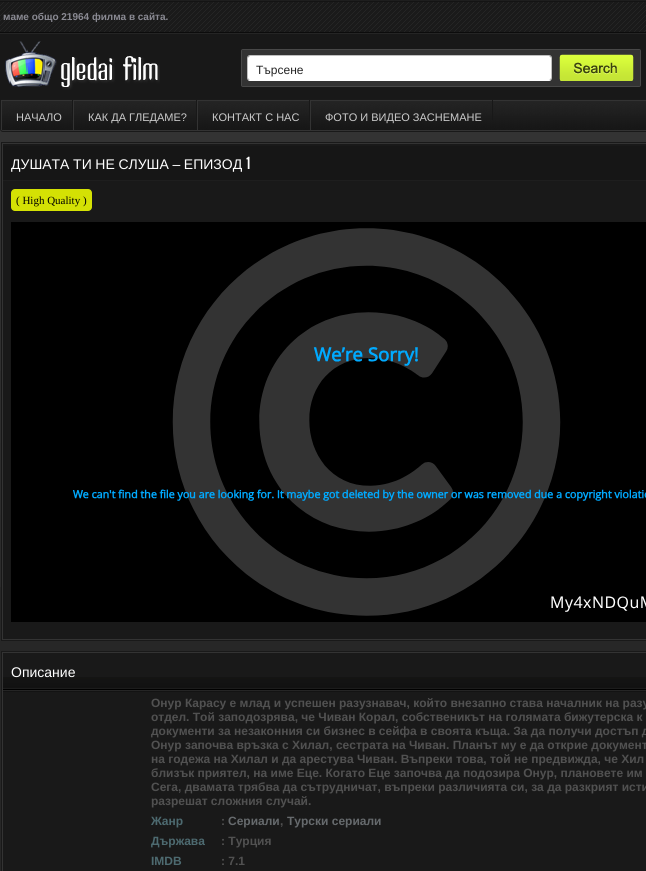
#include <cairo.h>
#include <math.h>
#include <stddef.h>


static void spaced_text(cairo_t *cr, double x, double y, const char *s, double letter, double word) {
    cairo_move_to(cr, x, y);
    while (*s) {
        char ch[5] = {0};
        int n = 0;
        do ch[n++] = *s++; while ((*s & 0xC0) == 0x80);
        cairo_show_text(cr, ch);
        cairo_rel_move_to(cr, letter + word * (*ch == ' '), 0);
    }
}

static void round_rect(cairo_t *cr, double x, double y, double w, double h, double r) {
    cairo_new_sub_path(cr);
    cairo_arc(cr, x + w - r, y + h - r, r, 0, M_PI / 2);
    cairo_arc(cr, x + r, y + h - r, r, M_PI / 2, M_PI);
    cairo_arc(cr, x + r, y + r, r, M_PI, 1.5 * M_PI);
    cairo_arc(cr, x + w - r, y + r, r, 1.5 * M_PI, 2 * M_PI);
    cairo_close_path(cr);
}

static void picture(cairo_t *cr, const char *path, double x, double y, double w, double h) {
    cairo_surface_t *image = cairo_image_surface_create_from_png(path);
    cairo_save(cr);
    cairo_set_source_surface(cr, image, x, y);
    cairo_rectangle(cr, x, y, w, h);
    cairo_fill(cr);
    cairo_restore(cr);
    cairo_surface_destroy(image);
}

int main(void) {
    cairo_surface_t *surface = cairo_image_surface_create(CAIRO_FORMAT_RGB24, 646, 871);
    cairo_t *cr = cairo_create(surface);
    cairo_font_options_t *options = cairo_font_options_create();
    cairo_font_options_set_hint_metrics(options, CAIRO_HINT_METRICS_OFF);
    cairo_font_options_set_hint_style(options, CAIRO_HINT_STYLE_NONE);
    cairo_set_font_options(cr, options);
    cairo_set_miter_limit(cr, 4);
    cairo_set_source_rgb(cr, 0.153, 0.153, 0.153);
    cairo_paint(cr);
    picture(cr, "img1.png", 0, 0, 646, 587);
    cairo_set_source_rgb(cr, 0.082, 0.082, 0.082);
    cairo_rectangle(cr, 0, 1, 646, 1);
    cairo_fill(cr);
    cairo_select_font_face(cr, "Liberation Sans", CAIRO_FONT_SLANT_NORMAL, CAIRO_FONT_WEIGHT_BOLD);
    cairo_set_font_size(cr, 10);
    cairo_set_source_rgb(cr, 0.541, 0.541, 0.576);
    cairo_move_to(cr, 3, 20);
    cairo_show_text(cr, "маме общо 21964 филма в сайта.");
    picture(cr, "img2.png", 5, 41, 155, 49);
    picture(cr, "img3.png", 241, 49, 400, 38);
    cairo_select_font_face(cr, "Liberation Sans", CAIRO_FONT_SLANT_NORMAL, CAIRO_FONT_WEIGHT_NORMAL);
    cairo_set_font_size(cr, 12);
    cairo_set_source_rgb(cr, 0.141, 0.141, 0.141);
    cairo_move_to(cr, 256, 74);
    cairo_show_text(cr, "Търсене");
    picture(cr, "img4.png", 559, 54, 75, 27);
    round_rect(cr, 0.5, 99.5, 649, 32, 2.5);
    cairo_set_source_rgb(cr, 0.098, 0.098, 0.098);
    cairo_set_line_width(cr, 1);
    cairo_stroke(cr);
    picture(cr, "img5.png", 2, 100, 644, 30);
    cairo_set_source_rgb(cr, 0.094, 0.094, 0.094);
    cairo_rectangle(cr, 72, 100, 1, 20);
    cairo_fill(cr);
    cairo_set_source_rgb(cr, 0.2, 0.2, 0.2);
    cairo_rectangle(cr, 1, 100, 1, 30);
    cairo_fill(cr);
    cairo_set_font_size(cr, 11);
    cairo_set_source_rgb(cr, 0.8, 0.8, 0.8);
    cairo_move_to(cr, 16, 121);
    cairo_show_text(cr, "НАЧАЛО");
    cairo_set_source_rgb(cr, 0.094, 0.094, 0.094);
    cairo_rectangle(cr, 196, 100, 1, 20);
    cairo_fill(cr);
    cairo_set_source_rgb(cr, 0.2, 0.2, 0.2);
    cairo_rectangle(cr, 73, 100, 1, 30);
    cairo_fill(cr);
    cairo_set_source_rgb(cr, 0.8, 0.8, 0.8);
    cairo_move_to(cr, 88, 121);
    cairo_show_text(cr, "КАК ДА ГЛЕДАМЕ?");
    cairo_set_source_rgb(cr, 0.094, 0.094, 0.094);
    cairo_rectangle(cr, 309, 100, 1, 21);
    cairo_fill(cr);
    cairo_set_source_rgb(cr, 0.2, 0.2, 0.2);
    cairo_rectangle(cr, 197, 100, 1, 30);
    cairo_fill(cr);
    cairo_set_source_rgb(cr, 0.8, 0.8, 0.8);
    cairo_move_to(cr, 212, 121);
    cairo_show_text(cr, "КОНТАКТ С НАС");
    cairo_set_source_rgb(cr, 0.094, 0.094, 0.094);
    cairo_rectangle(cr, 492, 100, 1, 20);
    cairo_fill(cr);
    cairo_set_source_rgb(cr, 0.2, 0.2, 0.2);
    cairo_rectangle(cr, 310, 100, 1, 30);
    cairo_fill(cr);
    cairo_set_source_rgb(cr, 0.8, 0.8, 0.8);
    cairo_move_to(cr, 325, 121);
    cairo_show_text(cr, "ФОТО И ВИДЕО ЗАСНЕМАНЕ");
    cairo_rectangle(cr, 1.5, 142.5, 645, 498);
    cairo_set_source_rgb(cr, 0.098, 0.098, 0.098);
    cairo_stroke(cr);
    cairo_rectangle(cr, 2.5, 143.5, 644, 496);
    cairo_fill_preserve(cr);
    cairo_set_source_rgb(cr, 0.2, 0.2, 0.2);
    cairo_stroke(cr);
    cairo_set_source_rgb(cr, 0.086, 0.086, 0.086);
    cairo_rectangle(cr, 3, 146, 643, 34);
    cairo_fill(cr);
    cairo_set_source_rgb(cr, 0.118, 0.118, 0.118);
    cairo_rectangle(cr, 3, 180, 643, 1);
    cairo_fill(cr);
    cairo_set_font_size(cr, 14);
    cairo_set_source_rgb(cr, 1, 1, 1);
    spaced_text(cr, 11, 169, "ДУШАТА ТИ НЕ СЛУША – ЕПИЗОД", 0, -0.25);
    cairo_select_font_face(cr, "Oswald", CAIRO_FONT_SLANT_NORMAL, CAIRO_FONT_WEIGHT_NORMAL);
    cairo_move_to(cr, 246, 169);
    cairo_show_text(cr, "1");
    cairo_set_source_rgb(cr, 0.831, 0.882, 0.016);
    round_rect(cr, 11, 189, 81, 22, 4);
    cairo_fill(cr);
    cairo_select_font_face(cr, "Liberation Serif", CAIRO_FONT_SLANT_NORMAL, CAIRO_FONT_WEIGHT_NORMAL);
    cairo_set_font_size(cr, 11);
    cairo_set_source_rgb(cr, 0, 0, 0);
    cairo_move_to(cr, 16, 204);
    cairo_show_text(cr, "( High Quality )");
    picture(cr, "img6.png", 11, 222, 635, 400);
    cairo_rectangle(cr, 1.5, 651.5, 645, 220);
    cairo_set_source_rgb(cr, 0.098, 0.098, 0.098);
    cairo_stroke(cr);
    cairo_rectangle(cr, 2.5, 652.5, 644, 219);
    cairo_fill_preserve(cr);
    cairo_set_source_rgb(cr, 0.2, 0.2, 0.2);
    cairo_stroke(cr);
    picture(cr, "img7.png", 3, 677, 643, 14);
    cairo_set_source_rgb(cr, 0.075, 0.075, 0.075);
    cairo_rectangle(cr, 3, 691, 643, 1);
    cairo_fill(cr);
    cairo_select_font_face(cr, "Liberation Sans", CAIRO_FONT_SLANT_NORMAL, CAIRO_FONT_WEIGHT_NORMAL);
    cairo_set_font_size(cr, 14);
    cairo_set_source_rgb(cr, 1, 1, 1);
    cairo_move_to(cr, 11, 677);
    cairo_show_text(cr, "Описание");
    cairo_select_font_face(cr, "Liberation Sans", CAIRO_FONT_SLANT_NORMAL, CAIRO_FONT_WEIGHT_BOLD);
    cairo_set_font_size(cr, 12);
    cairo_set_source_rgb(cr, 0.318, 0.318, 0.318);
    cairo_move_to(cr, 151, 707);
    cairo_show_text(cr, "Онур Карасу е млад и успешен разузнавач, който внезапно става началник на разу");
    cairo_move_to(cr, 151, 721);
    cairo_show_text(cr, "отдел. Той заподозрява, че Чиван Корал, собственикът на голямата бижутерска к");
    cairo_move_to(cr, 151, 735);
    cairo_show_text(cr, "документи за незаконния си бизнес в сейфа в своята къща. За да получи достъп д");
    cairo_move_to(cr, 151, 749);
    cairo_show_text(cr, "Онур започва връзка с Хилал, сестрата на Чиван. Планът му е да открие документ");
    cairo_move_to(cr, 151, 763);
    cairo_show_text(cr, "на годежа на Хилал и да арестува Чиван. Въпреки това, той не предвижда, че Хил");
    cairo_move_to(cr, 151, 777);
    cairo_show_text(cr, "близък приятел, на име Еце. Когато Еце започва да подозира Онур, плановете им");
    cairo_move_to(cr, 151, 791);
    cairo_show_text(cr, "Сега, двамата трябва да сътрудничат, въпреки различията си, за да разкрият исти");
    cairo_move_to(cr, 151, 805);
    cairo_show_text(cr, "разрешат сложния случай.");
    cairo_set_source_rgb(cr, 0.302, 0.416, 0.439);
    cairo_move_to(cr, 151, 825);
    cairo_show_text(cr, "Жанр");
    cairo_set_source_rgb(cr, 0.318, 0.318, 0.318);
    cairo_move_to(cr, 221, 825);
    cairo_show_text(cr, ":");
    cairo_set_source_rgb(cr, 0.4, 0.416, 0.427);
    cairo_move_to(cr, 228, 825);
    cairo_show_text(cr, "Сериали");
    cairo_set_source_rgb(cr, 0.318, 0.318, 0.318);
    cairo_move_to(cr, 280, 825);
    cairo_show_text(cr, ",");
    cairo_set_source_rgb(cr, 0.4, 0.416, 0.427);
    cairo_move_to(cr, 287, 825);
    cairo_show_text(cr, "Турски сериали");
    cairo_set_source_rgb(cr, 0.302, 0.416, 0.439);
    cairo_move_to(cr, 151, 845);
    cairo_show_text(cr, "Държава");
    cairo_set_source_rgb(cr, 0.318, 0.318, 0.318);
    cairo_move_to(cr, 221, 845);
    cairo_show_text(cr, ": Турция");
    cairo_set_source_rgb(cr, 0.302, 0.416, 0.439);
    cairo_move_to(cr, 151, 865);
    cairo_show_text(cr, "IMDB");
    cairo_set_source_rgb(cr, 0.318, 0.318, 0.318);
    cairo_move_to(cr, 221, 865);
    cairo_show_text(cr, ": 7.1");
    cairo_surface_write_to_png(surface, "page.png");
    cairo_font_options_destroy(options);
    cairo_destroy(cr);
    cairo_surface_destroy(surface);
    return 0;
}
